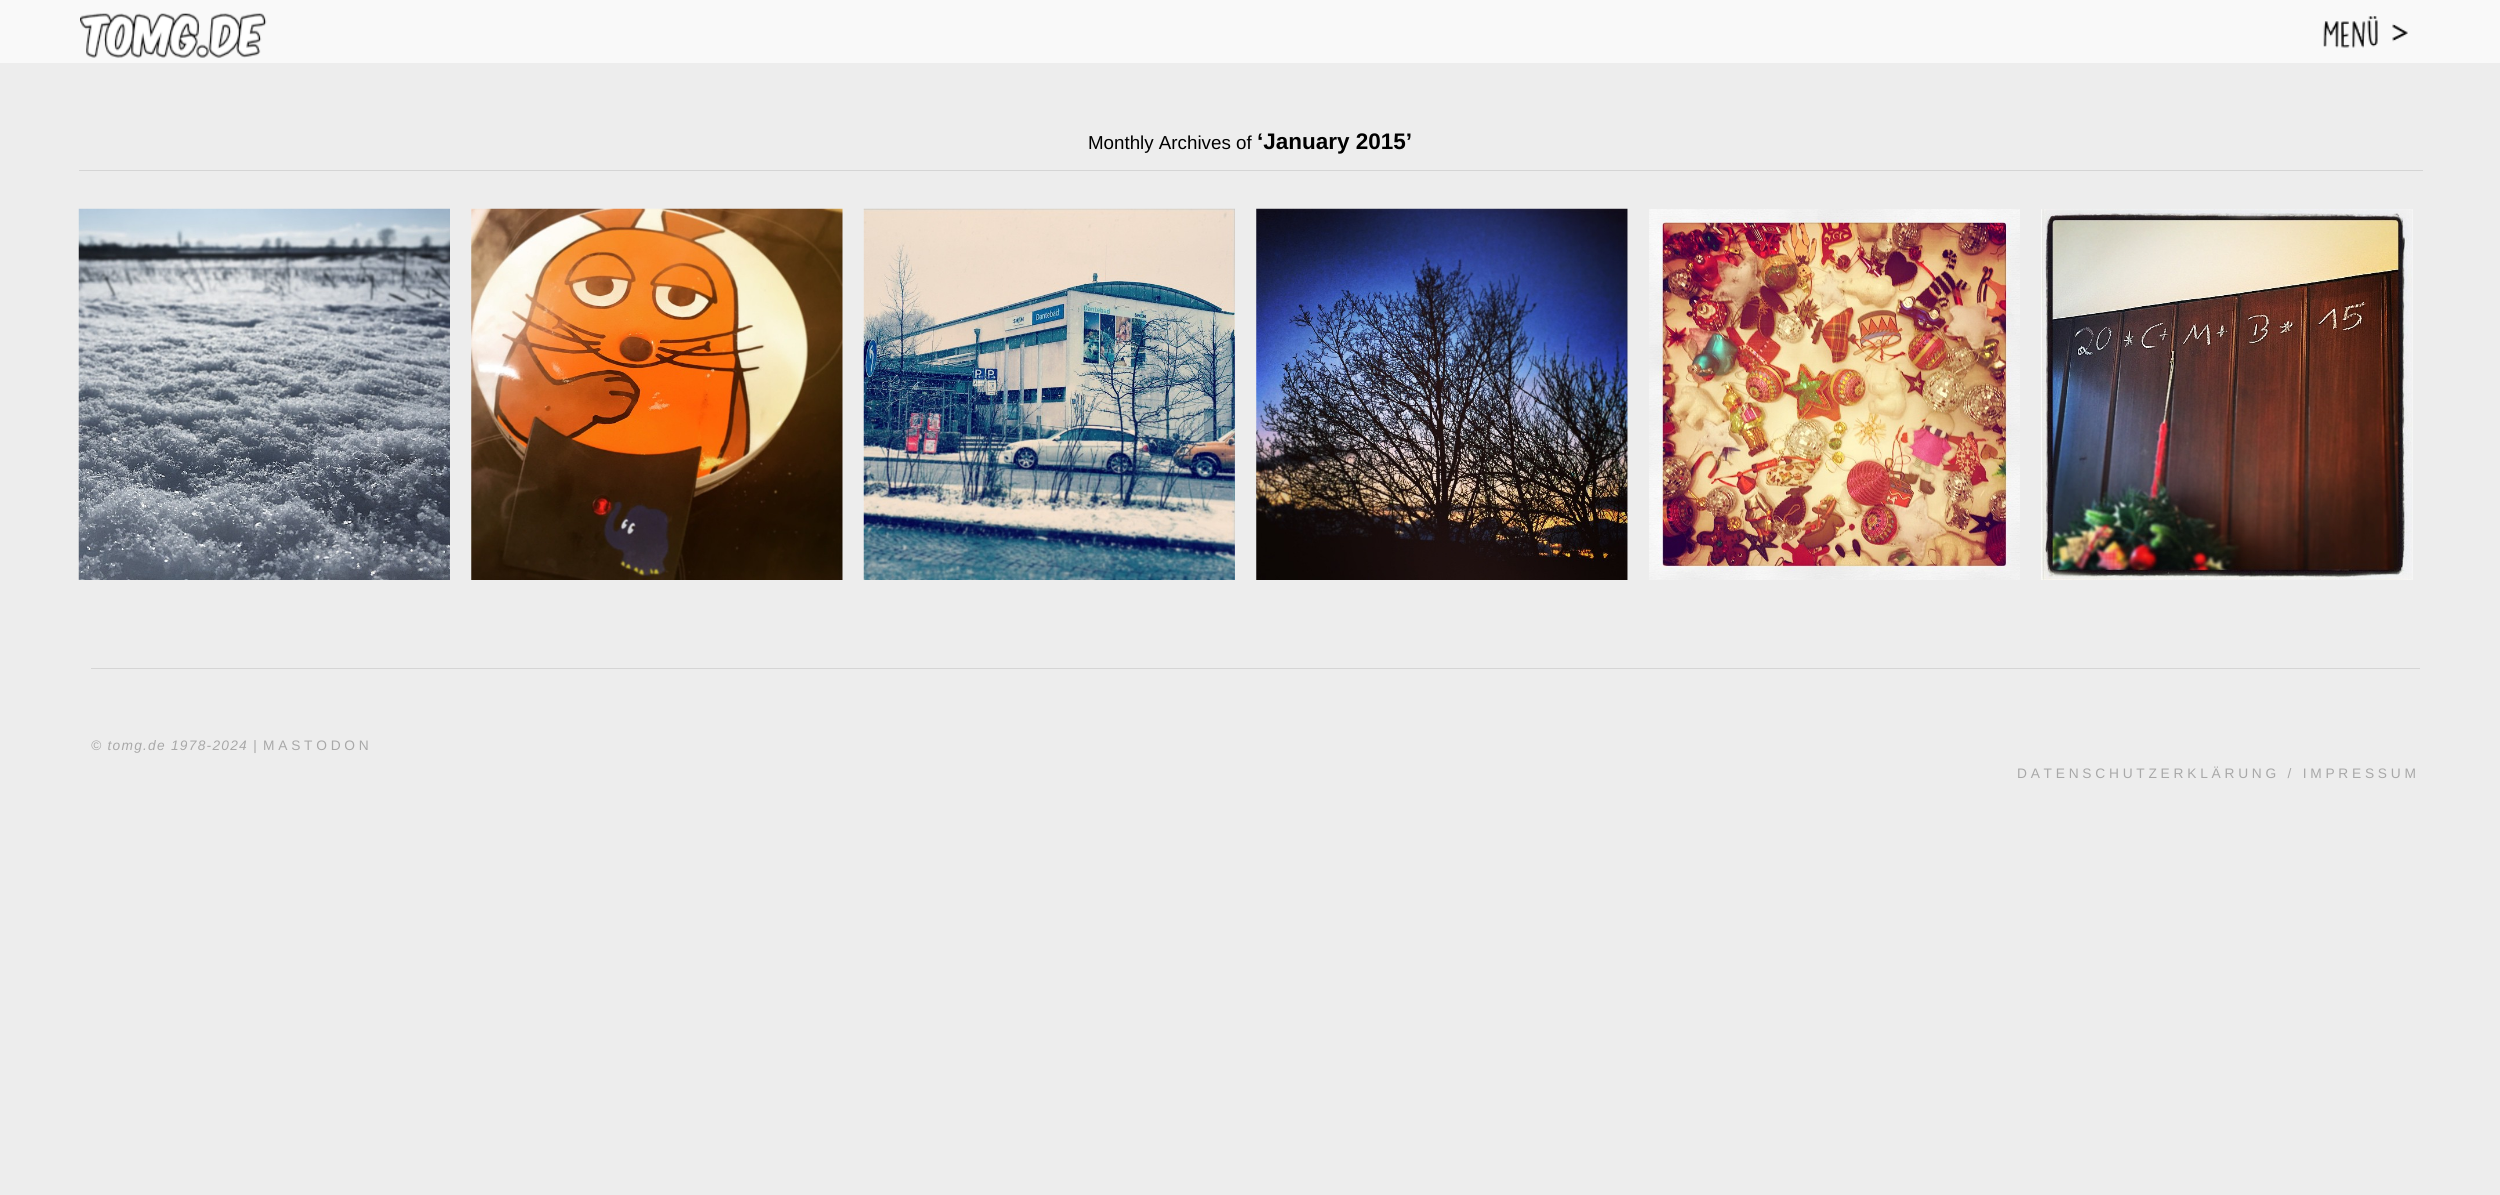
#include <cairo.h>
#include <math.h>
#include <stddef.h>


static void spaced_text(cairo_t *cr, double x, double y, const char *s, double letter, double word) {
    cairo_move_to(cr, x, y);
    while (*s) {
        char ch[5] = {0};
        int n = 0;
        do ch[n++] = *s++; while ((*s & 0xC0) == 0x80);
        cairo_show_text(cr, ch);
        cairo_rel_move_to(cr, letter + word * (*ch == ' '), 0);
    }
}

static void picture(cairo_t *cr, const char *path, double x, double y, double w, double h) {
    cairo_surface_t *image = cairo_image_surface_create_from_png(path);
    cairo_save(cr);
    cairo_set_source_surface(cr, image, x, y);
    cairo_rectangle(cr, x, y, w, h);
    cairo_fill(cr);
    cairo_restore(cr);
    cairo_surface_destroy(image);
}

int main(void) {
    cairo_surface_t *surface = cairo_image_surface_create(CAIRO_FORMAT_RGB24, 2500, 1195);
    cairo_t *cr = cairo_create(surface);
    cairo_font_options_t *options = cairo_font_options_create();
    cairo_font_options_set_hint_metrics(options, CAIRO_HINT_METRICS_OFF);
    cairo_font_options_set_hint_style(options, CAIRO_HINT_STYLE_NONE);
    cairo_set_font_options(cr, options);
    cairo_set_miter_limit(cr, 4);
    cairo_set_source_rgb(cr, 0.929, 0.929, 0.929);
    cairo_paint(cr);
    cairo_set_source_rgb(cr, 0.976, 0.976, 0.976);
    cairo_rectangle(cr, 0, 0, 2500, 63);
    cairo_fill(cr);
    picture(cr, "img1.png", 2323, 16, 85, 32);
    picture(cr, "img2.png", 80, 13, 187, 45);
    cairo_set_source_rgb(cr, 0.835, 0.835, 0.835);
    cairo_rectangle(cr, 79, 170, 2344, 1);
    cairo_fill(cr);
    cairo_select_font_face(cr, "Liberation Sans", CAIRO_FONT_SLANT_NORMAL, CAIRO_FONT_WEIGHT_NORMAL);
    cairo_set_font_size(cr, 18.75);
    cairo_set_source_rgb(cr, 0, 0, 0);
    cairo_move_to(cr, 1088, 149);
    cairo_show_text(cr, "Monthly Archives of");
    cairo_select_font_face(cr, "Liberation Sans", CAIRO_FONT_SLANT_NORMAL, CAIRO_FONT_WEIGHT_BOLD);
    cairo_set_font_size(cr, 22.5);
    cairo_move_to(cr, 1257, 149);
    cairo_show_text(cr, "‘January 2015’");
    picture(cr, "img3.png", 78, 208, 372, 372);
    picture(cr, "img4.png", 471, 208, 372, 372);
    picture(cr, "img5.png", 863, 208, 372, 372);
    picture(cr, "img6.png", 1256, 208, 372, 372);
    picture(cr, "img7.png", 1649, 209, 371, 371);
    picture(cr, "img8.png", 2041, 209, 372, 371);
    cairo_set_source_rgb(cr, 0.835, 0.835, 0.835);
    cairo_rectangle(cr, 91, 668, 2329, 1);
    cairo_fill(cr);
    cairo_select_font_face(cr, "Liberation Sans", CAIRO_FONT_SLANT_ITALIC, CAIRO_FONT_WEIGHT_NORMAL);
    cairo_set_font_size(cr, 13.75);
    cairo_set_source_rgb(cr, 0.659, 0.659, 0.659);
    spaced_text(cr, 91, 750, "© tomg.de 1978-2024 |", 1.25, 0);
    cairo_select_font_face(cr, "Liberation Sans", CAIRO_FONT_SLANT_NORMAL, CAIRO_FONT_WEIGHT_NORMAL);
    spaced_text(cr, 263, 750, "MASTODON", 3.75, 0);
    spaced_text(cr, 2017, 778, "DATENSCHUTZERKLÄRUNG / IMPRESSUM", 3.75, 0);
    cairo_surface_write_to_png(surface, "page.png");
    cairo_font_options_destroy(options);
    cairo_destroy(cr);
    cairo_surface_destroy(surface);
    return 0;
}
